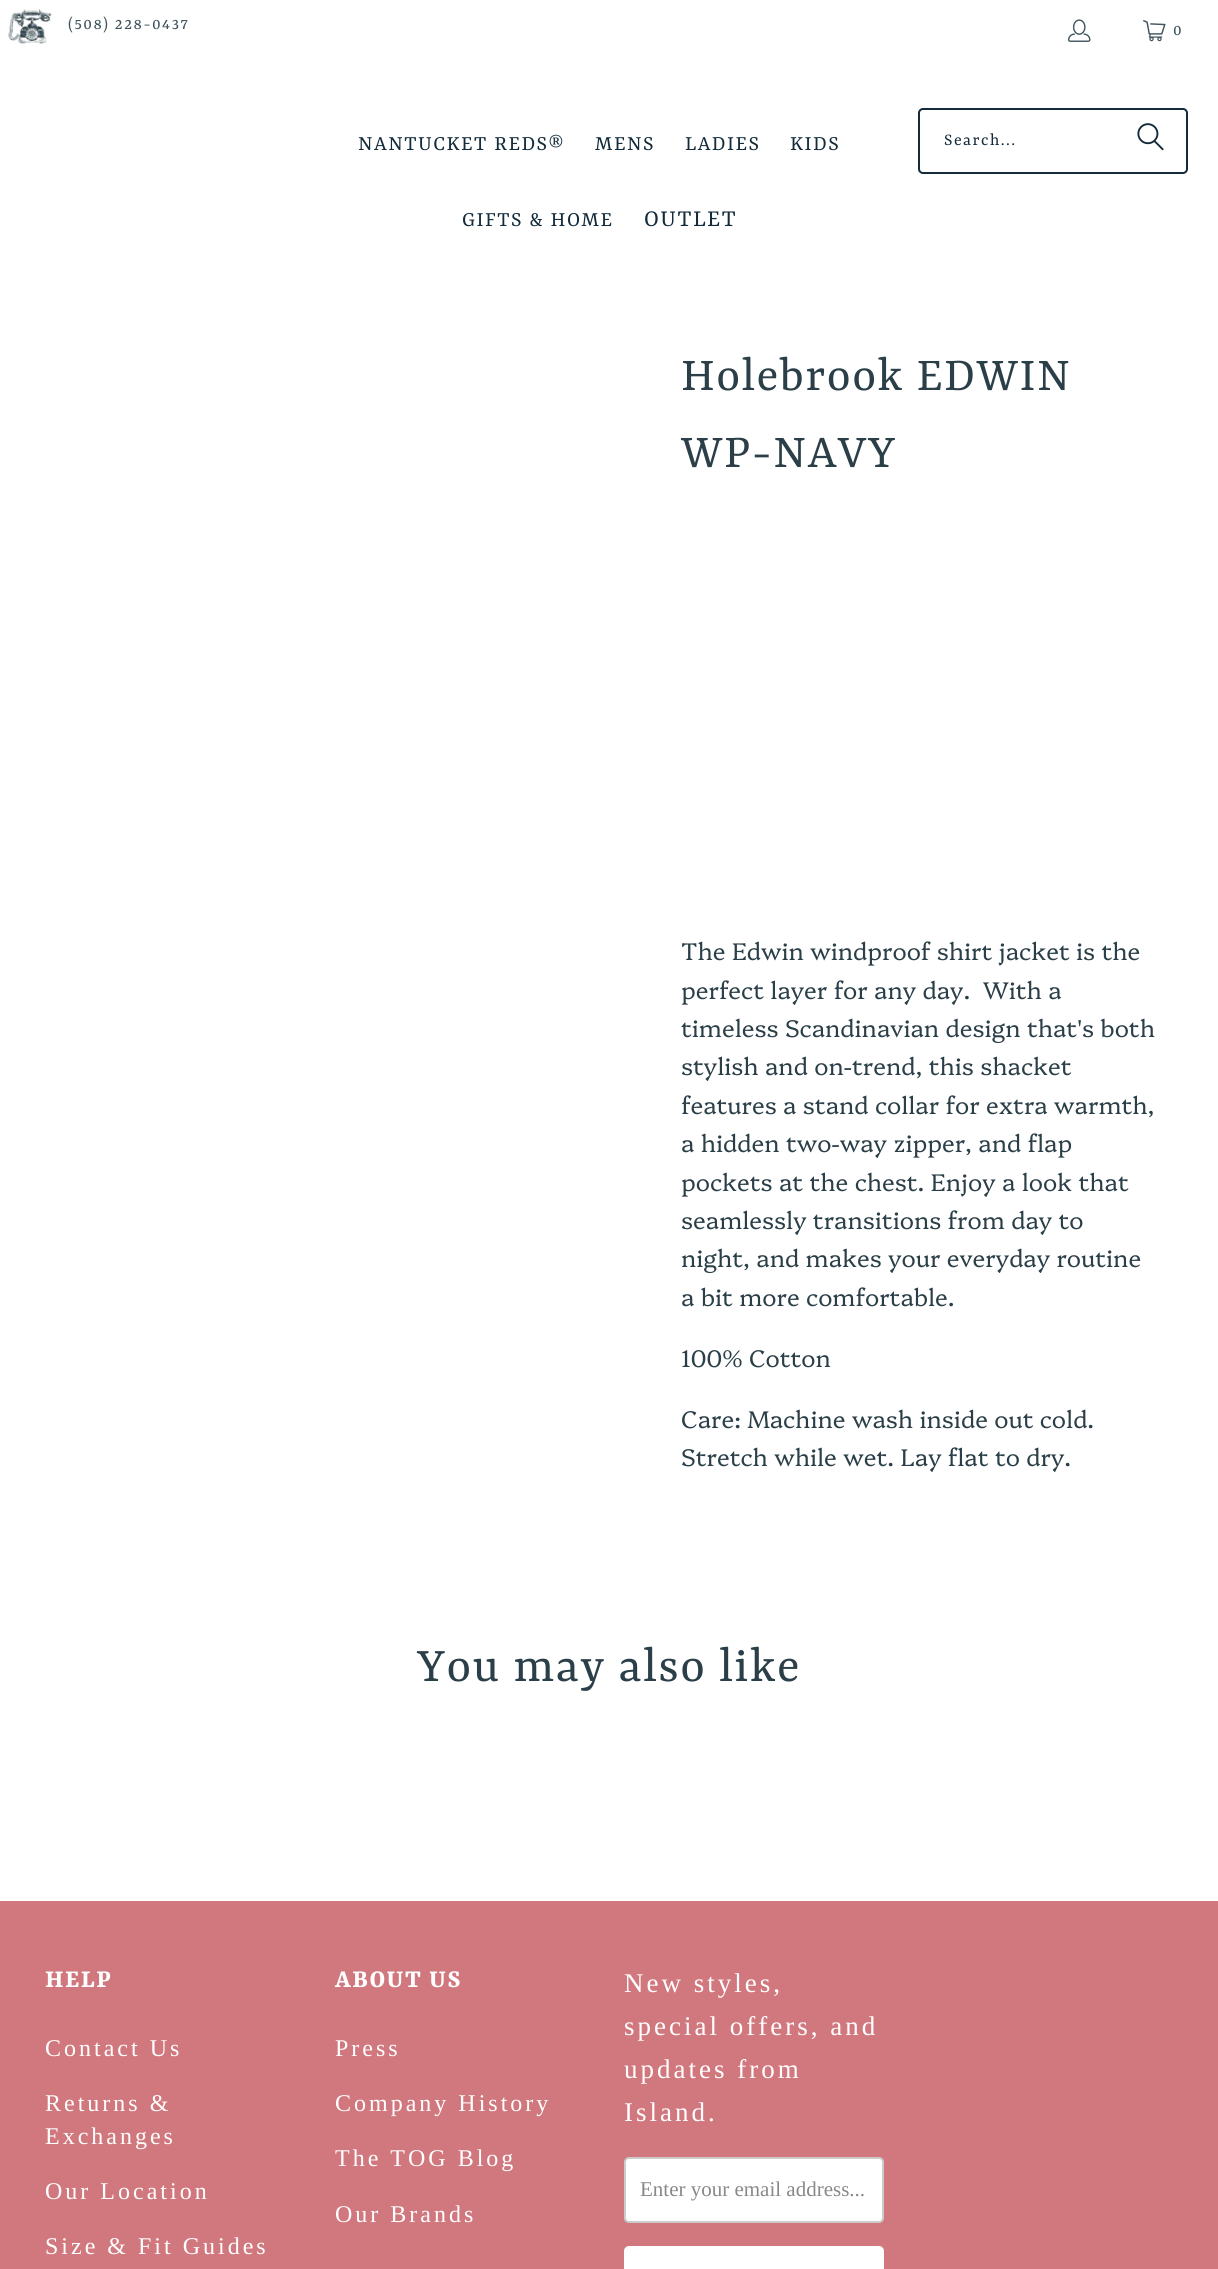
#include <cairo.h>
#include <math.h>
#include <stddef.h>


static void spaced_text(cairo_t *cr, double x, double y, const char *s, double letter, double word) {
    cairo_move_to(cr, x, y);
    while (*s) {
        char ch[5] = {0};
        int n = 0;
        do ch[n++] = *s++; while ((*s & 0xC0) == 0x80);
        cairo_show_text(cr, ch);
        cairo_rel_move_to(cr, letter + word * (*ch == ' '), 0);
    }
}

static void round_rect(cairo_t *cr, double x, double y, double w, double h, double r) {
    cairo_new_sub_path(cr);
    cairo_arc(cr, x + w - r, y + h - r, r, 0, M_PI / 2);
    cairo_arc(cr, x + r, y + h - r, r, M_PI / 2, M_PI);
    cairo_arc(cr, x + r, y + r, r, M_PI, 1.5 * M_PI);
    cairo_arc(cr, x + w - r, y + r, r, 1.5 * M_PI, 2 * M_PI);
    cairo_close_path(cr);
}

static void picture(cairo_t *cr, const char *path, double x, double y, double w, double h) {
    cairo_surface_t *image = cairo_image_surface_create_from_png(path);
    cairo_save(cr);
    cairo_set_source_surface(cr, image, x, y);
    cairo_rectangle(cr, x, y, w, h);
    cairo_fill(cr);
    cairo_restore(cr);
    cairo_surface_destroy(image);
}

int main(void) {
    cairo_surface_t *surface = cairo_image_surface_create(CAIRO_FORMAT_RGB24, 1218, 2269);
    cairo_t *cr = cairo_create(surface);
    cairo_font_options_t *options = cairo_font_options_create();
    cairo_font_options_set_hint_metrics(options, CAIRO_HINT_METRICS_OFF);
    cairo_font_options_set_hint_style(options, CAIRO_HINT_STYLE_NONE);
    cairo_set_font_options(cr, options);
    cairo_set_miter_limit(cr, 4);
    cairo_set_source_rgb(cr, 1, 1, 1);
    cairo_paint(cr);
    picture(cr, "img1.png", 8, 9, 44, 35);
    cairo_select_font_face(cr, "Rasa", CAIRO_FONT_SLANT_NORMAL, CAIRO_FONT_WEIGHT_NORMAL);
    cairo_set_font_size(cr, 18);
    cairo_set_source_rgb(cr, 0.247, 0.329, 0.365);
    spaced_text(cr, 68, 29, "(508) 228-0437", 1.5, 0);
    picture(cr, "img2.png", 1068, 19, 23, 23);
    picture(cr, "img3.png", 1143, 20, 23, 22);
    spaced_text(cr, 1173, 35, "0", 1.5, 0);
    cairo_set_font_size(cr, 22.5);
    cairo_set_source_rgb(cr, 0.078, 0.169, 0.231);
    spaced_text(cr, 358, 150, "NANTUCKET REDS®", 1.5, 0);
    spaced_text(cr, 595, 150, "MENS", 1.5, 0);
    spaced_text(cr, 685, 150, "LADIES", 1.5, 0);
    spaced_text(cr, 790, 150, "KIDS", 1.5, 0);
    spaced_text(cr, 462, 226, "GIFTS & HOME", 1.5, 0);
    cairo_set_font_size(cr, 25.5);
    spaced_text(cr, 644, 226, "OUTLET", 1.5, 0);
    round_rect(cr, 919, 109, 268, 64, 4);
    cairo_stroke(cr);
    cairo_set_font_size(cr, 18);
    spaced_text(cr, 944, 145, "Search...", 1.5, 0);
    picture(cr, "img4.png", 1137, 123, 27, 28);
    cairo_set_font_size(cr, 51);
    cairo_set_source_rgb(cr, 0.169, 0.247, 0.282);
    spaced_text(cr, 681, 390, "Holebrook EDWIN", 1.5, 0);
    spaced_text(cr, 681, 467, "WP-NAVY", 1.5, 0);
    cairo_select_font_face(cr, "Platypi Light", CAIRO_FONT_SLANT_NORMAL, CAIRO_FONT_WEIGHT_NORMAL);
    cairo_set_font_size(cr, 24);
    cairo_move_to(cr, 681, 960);
    cairo_show_text(cr, "The Edwin windproof shirt jacket is the");
    cairo_move_to(cr, 681, 999);
    cairo_show_text(cr, "perfect layer for any day.  With a");
    cairo_move_to(cr, 681, 1037);
    cairo_show_text(cr, "timeless Scandinavian design that's both");
    cairo_move_to(cr, 681, 1075);
    cairo_show_text(cr, "stylish and on-trend, this shacket");
    cairo_move_to(cr, 681, 1114);
    cairo_show_text(cr, "features a stand collar for extra warmth,");
    cairo_move_to(cr, 681, 1152);
    cairo_show_text(cr, "a hidden two-way zipper, and flap");
    cairo_move_to(cr, 681, 1191);
    cairo_show_text(cr, "pockets at the chest. Enjoy a look that");
    cairo_move_to(cr, 681, 1229);
    cairo_show_text(cr, "seamlessly transitions from day to");
    cairo_move_to(cr, 681, 1267);
    cairo_show_text(cr, "night, and makes your everyday routine");
    cairo_move_to(cr, 681, 1306);
    cairo_show_text(cr, "a bit more comfortable.");
    cairo_move_to(cr, 681, 1367);
    cairo_show_text(cr, "100% Cotton");
    cairo_move_to(cr, 681, 1428);
    cairo_show_text(cr, "Care: Machine wash inside out cold.");
    cairo_move_to(cr, 681, 1466);
    cairo_show_text(cr, "Stretch while wet. Lay flat to dry.");
    cairo_select_font_face(cr, "Rasa", CAIRO_FONT_SLANT_NORMAL, CAIRO_FONT_WEIGHT_NORMAL);
    cairo_set_font_size(cr, 52.5);
    spaced_text(cr, 417, 1681, "You may also like", 1.5, 0);
    cairo_set_source_rgb(cr, 0.82, 0.471, 0.494);
    cairo_rectangle(cr, 0, 1901, 1218, 368);
    cairo_fill(cr);
    cairo_select_font_face(cr, "Rasa", CAIRO_FONT_SLANT_NORMAL, CAIRO_FONT_WEIGHT_BOLD);
    cairo_set_font_size(cr, 27);
    cairo_set_source_rgb(cr, 1, 1, 1);
    spaced_text(cr, 45, 1987, "HELP", 1.5, 0);
    cairo_select_font_face(cr, "Liberation Serif", CAIRO_FONT_SLANT_NORMAL, CAIRO_FONT_WEIGHT_NORMAL);
    cairo_set_font_size(cr, 24);
    spaced_text(cr, 45, 2056, "Contact Us", 3, 0);
    spaced_text(cr, 45, 2111, "Returns &", 3, 0);
    spaced_text(cr, 45, 2144, "Exchanges", 3, 0);
    spaced_text(cr, 45, 2199, "Our Location", 3, 0);
    spaced_text(cr, 45, 2254, "Size & Fit Guides", 3, 0);
    cairo_select_font_face(cr, "Rasa", CAIRO_FONT_SLANT_NORMAL, CAIRO_FONT_WEIGHT_BOLD);
    cairo_set_font_size(cr, 27);
    spaced_text(cr, 335, 1987, "ABOUT US", 1.5, 0);
    cairo_select_font_face(cr, "Liberation Serif", CAIRO_FONT_SLANT_NORMAL, CAIRO_FONT_WEIGHT_NORMAL);
    cairo_set_font_size(cr, 24);
    spaced_text(cr, 335, 2056, "Press", 3, 0);
    spaced_text(cr, 335, 2111, "Company History", 3, 0);
    spaced_text(cr, 335, 2166, "The TOG Blog", 3, 0);
    spaced_text(cr, 335, 2222, "Our Brands", 3, 0);
    cairo_set_font_size(cr, 27);
    spaced_text(cr, 624, 1992, "New styles,", 3, 0);
    spaced_text(cr, 624, 2035, "special offers, and", 3, 0);
    spaced_text(cr, 624, 2078, "updates from", 3, 0);
    spaced_text(cr, 624, 2121, "Island.", 3, 0);
    round_rect(cr, 625, 2158, 258, 64, 4);
    cairo_fill_preserve(cr);
    cairo_set_source_rgb(cr, 0.8, 0.8, 0.8);
    cairo_stroke(cr);
    cairo_set_font_size(cr, 21);
    cairo_set_source_rgb(cr, 0.533, 0.533, 0.533);
    cairo_move_to(cr, 640, 2196);
    cairo_show_text(cr, "Enter your email address...");
    cairo_set_source_rgb(cr, 1, 1, 1);
    round_rect(cr, 625, 2247, 258, 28, 4);
    cairo_fill_preserve(cr);
    cairo_stroke(cr);
    cairo_surface_write_to_png(surface, "page.png");
    cairo_font_options_destroy(options);
    cairo_destroy(cr);
    cairo_surface_destroy(surface);
    return 0;
}
